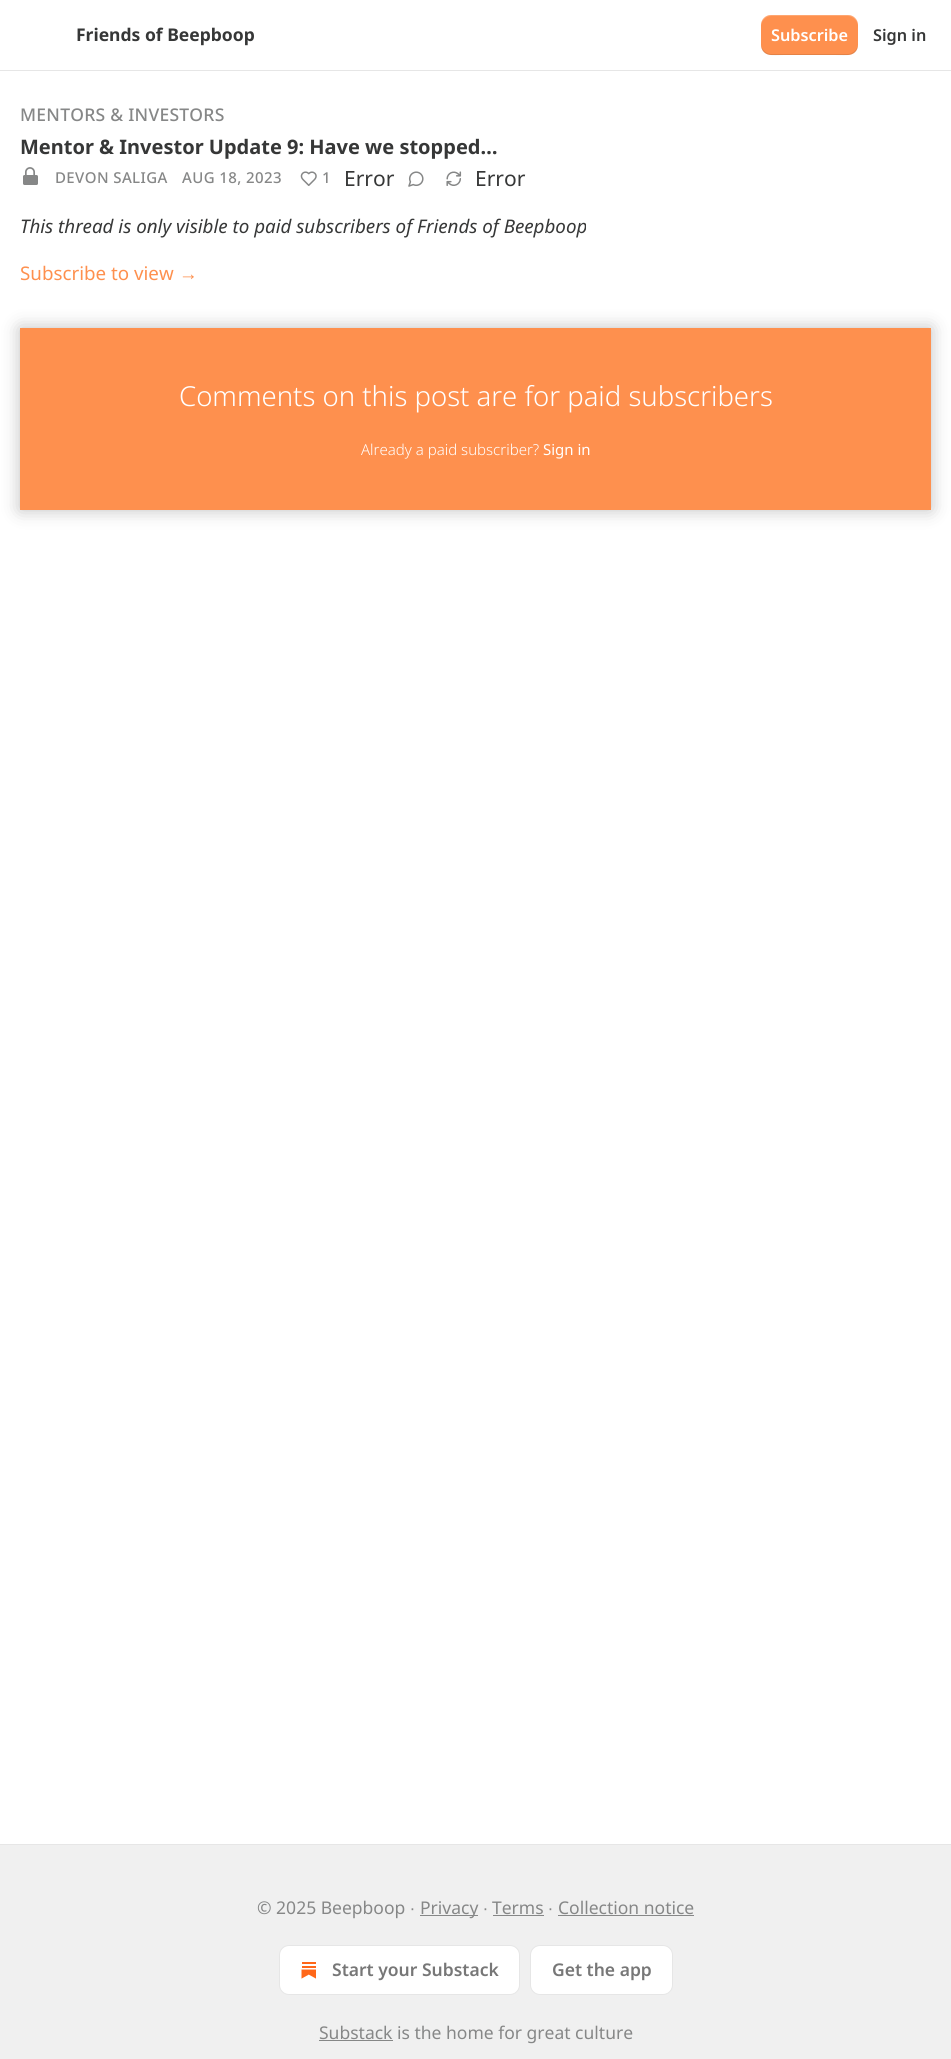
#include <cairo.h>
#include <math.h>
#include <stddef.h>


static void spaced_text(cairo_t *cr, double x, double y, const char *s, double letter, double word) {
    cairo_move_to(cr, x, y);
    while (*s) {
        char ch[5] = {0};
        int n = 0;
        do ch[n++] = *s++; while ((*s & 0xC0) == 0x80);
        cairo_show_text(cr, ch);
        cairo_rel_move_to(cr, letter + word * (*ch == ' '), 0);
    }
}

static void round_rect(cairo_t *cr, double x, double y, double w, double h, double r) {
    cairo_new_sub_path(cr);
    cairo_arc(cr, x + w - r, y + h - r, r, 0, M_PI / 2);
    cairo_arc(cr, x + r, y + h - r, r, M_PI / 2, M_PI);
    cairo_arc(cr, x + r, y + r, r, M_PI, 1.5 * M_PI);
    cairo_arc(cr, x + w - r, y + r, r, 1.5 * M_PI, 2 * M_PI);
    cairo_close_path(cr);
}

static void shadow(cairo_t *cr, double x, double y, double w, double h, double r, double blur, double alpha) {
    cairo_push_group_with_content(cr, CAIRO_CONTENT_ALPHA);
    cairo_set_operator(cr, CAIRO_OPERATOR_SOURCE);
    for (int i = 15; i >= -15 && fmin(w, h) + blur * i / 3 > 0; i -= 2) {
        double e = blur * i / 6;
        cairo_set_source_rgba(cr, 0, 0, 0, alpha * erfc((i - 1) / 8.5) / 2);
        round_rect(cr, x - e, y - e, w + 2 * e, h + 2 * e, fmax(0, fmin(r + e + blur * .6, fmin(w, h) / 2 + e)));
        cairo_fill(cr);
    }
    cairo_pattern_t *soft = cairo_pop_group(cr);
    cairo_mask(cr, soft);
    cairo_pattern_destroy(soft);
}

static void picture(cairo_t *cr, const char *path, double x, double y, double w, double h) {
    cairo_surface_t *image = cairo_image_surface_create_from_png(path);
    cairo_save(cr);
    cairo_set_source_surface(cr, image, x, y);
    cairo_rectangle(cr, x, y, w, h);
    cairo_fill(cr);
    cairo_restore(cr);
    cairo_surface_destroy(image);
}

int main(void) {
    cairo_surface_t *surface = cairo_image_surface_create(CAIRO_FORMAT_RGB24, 951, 2059);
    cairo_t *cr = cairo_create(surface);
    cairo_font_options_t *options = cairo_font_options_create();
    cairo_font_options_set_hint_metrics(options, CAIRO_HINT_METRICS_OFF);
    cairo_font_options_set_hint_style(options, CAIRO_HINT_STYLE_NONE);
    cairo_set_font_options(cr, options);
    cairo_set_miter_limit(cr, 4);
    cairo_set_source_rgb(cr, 1, 1, 1);
    cairo_paint(cr);
    cairo_set_source_rgb(cr, 0.902, 0.902, 0.902);
    cairo_rectangle(cr, 0, 70, 951, 1);
    cairo_fill(cr);
    cairo_select_font_face(cr, "Noto Sans", CAIRO_FONT_SLANT_NORMAL, CAIRO_FONT_WEIGHT_BOLD);
    cairo_set_font_size(cr, 17.5);
    cairo_set_source_rgb(cr, 0.212, 0.216, 0.216);
    cairo_move_to(cr, 76, 41);
    cairo_show_text(cr, "Friends of Beepboop");
    cairo_set_source_rgb(cr, 0.996, 0.565, 0.306);
    round_rect(cr, 761, 15, 97, 40, 10);
    cairo_fill(cr);
    cairo_set_source_rgba(cr, 0, 0, 0, 0.1);
    cairo_new_path(cr);
    cairo_move_to(cr, 761, 44);
    cairo_curve_to(cr, 761, 58, 774, 55, 784, 55);
    cairo_line_to(cr, 835, 55);
    cairo_curve_to(cr, 845, 55, 858, 58, 858, 44);
    cairo_curve_to(cr, 858, 49, 853, 54, 848, 54);
    cairo_line_to(cr, 771, 54);
    cairo_curve_to(cr, 766, 54, 761, 49, 761, 44);
    cairo_close_path(cr);
    cairo_fill(cr);
    cairo_set_source_rgba(cr, 1, 1, 1, 0.2);
    cairo_new_path(cr);
    cairo_move_to(cr, 771, 16);
    cairo_line_to(cr, 848, 16);
    cairo_curve_to(cr, 853, 16, 858, 21, 858, 26);
    cairo_curve_to(cr, 858, 12, 845, 15, 835, 15);
    cairo_line_to(cr, 784, 15);
    cairo_curve_to(cr, 774, 15, 761, 12, 761, 26);
    cairo_curve_to(cr, 761, 21, 766, 16, 771, 16);
    cairo_close_path(cr);
    cairo_fill(cr);
    cairo_select_font_face(cr, "Noto Sans SemiBold", CAIRO_FONT_SLANT_NORMAL, CAIRO_FONT_WEIGHT_NORMAL);
    cairo_set_font_size(cr, 16.25);
    cairo_set_source_rgb(cr, 1, 1, 1);
    cairo_move_to(cr, 771, 41);
    cairo_show_text(cr, "Subscribe");
    cairo_set_source_rgb(cr, 0.212, 0.216, 0.216);
    cairo_move_to(cr, 873, 41);
    cairo_show_text(cr, "Sign in");
    cairo_select_font_face(cr, "Noto Sans Medium", CAIRO_FONT_SLANT_NORMAL, CAIRO_FONT_WEIGHT_NORMAL);
    cairo_set_font_size(cr, 17.5);
    cairo_set_source_rgb(cr, 0.525, 0.529, 0.529);
    spaced_text(cr, 20, 121, "MENTORS & INVESTORS", 0.25, 0);
    cairo_select_font_face(cr, "Noto Sans", CAIRO_FONT_SLANT_NORMAL, CAIRO_FONT_WEIGHT_BOLD);
    cairo_set_font_size(cr, 20);
    cairo_set_source_rgb(cr, 0.212, 0.216, 0.216);
    cairo_move_to(cr, 20, 154);
    cairo_show_text(cr, "Mentor & Investor Update 9: Have we stopped…");
    picture(cr, "img1.png", 23, 167, 15, 18);
    cairo_select_font_face(cr, "Noto Sans Medium", CAIRO_FONT_SLANT_NORMAL, CAIRO_FONT_WEIGHT_NORMAL);
    cairo_set_font_size(cr, 15);
    cairo_set_source_rgb(cr, 0.525, 0.529, 0.529);
    spaced_text(cr, 55, 183, "DEVON SALIGA", 0.4, 0);
    spaced_text(cr, 182, 183, "AUG 18, 2023", 0.4, 0);
    picture(cr, "img2.png", 300, 171, 17, 15);
    spaced_text(cr, 322, 183, "1", 0.4, 0);
    cairo_select_font_face(cr, "Noto Sans", CAIRO_FONT_SLANT_NORMAL, CAIRO_FONT_WEIGHT_NORMAL);
    cairo_set_font_size(cr, 21);
    cairo_set_source_rgb(cr, 0.212, 0.216, 0.216);
    cairo_move_to(cr, 344, 186);
    cairo_show_text(cr, "Error");
    picture(cr, "img3.png", 408, 171, 16, 16);
    picture(cr, "img4.png", 446, 171, 16, 15);
    cairo_move_to(cr, 475, 186);
    cairo_show_text(cr, "Error");
    cairo_select_font_face(cr, "Noto Sans", CAIRO_FONT_SLANT_ITALIC, CAIRO_FONT_WEIGHT_NORMAL);
    cairo_set_font_size(cr, 18.75);
    cairo_move_to(cr, 20, 233);
    cairo_show_text(cr, "This thread is only visible to paid subscribers of Friends of Beepboop");
    cairo_select_font_face(cr, "Noto Sans", CAIRO_FONT_SLANT_NORMAL, CAIRO_FONT_WEIGHT_NORMAL);
    cairo_set_source_rgb(cr, 0.996, 0.565, 0.306);
    cairo_move_to(cr, 20, 280);
    cairo_show_text(cr, "Subscribe to view");
    cairo_select_font_face(cr, "Liberation Sans", CAIRO_FONT_SLANT_NORMAL, CAIRO_FONT_WEIGHT_NORMAL);
    cairo_move_to(cr, 179, 280);
    cairo_show_text(cr, "→");
    cairo_rectangle(cr, 20, 328, 911, 182);
    cairo_fill(cr);
    cairo_save(cr);
    cairo_set_fill_rule(cr, CAIRO_FILL_RULE_EVEN_ODD);
    cairo_new_path(cr);
    cairo_move_to(cr, 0, 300);
    cairo_line_to(cr, 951, 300);
    cairo_line_to(cr, 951, 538);
    cairo_line_to(cr, 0, 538);
    cairo_close_path(cr);
    cairo_move_to(cr, 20, 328);
    cairo_line_to(cr, 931, 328);
    cairo_line_to(cr, 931, 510);
    cairo_line_to(cr, 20, 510);
    cairo_close_path(cr);
    cairo_clip(cr);
    cairo_set_source_rgb(cr, 0, 0, 0);
    shadow(cr, 20, 328, 911, 182, 0, 9, 0.25);
    cairo_restore(cr);
    cairo_select_font_face(cr, "Noto Sans Light", CAIRO_FONT_SLANT_NORMAL, CAIRO_FONT_WEIGHT_NORMAL);
    cairo_set_font_size(cr, 27.5);
    cairo_set_source_rgb(cr, 1, 1, 1);
    cairo_move_to(cr, 179, 406);
    cairo_show_text(cr, "Comments on this post are for paid subscribers");
    cairo_set_font_size(cr, 15);
    cairo_move_to(cr, 361, 455);
    cairo_show_text(cr, "Already a paid subscriber?");
    cairo_select_font_face(cr, "Noto Sans", CAIRO_FONT_SLANT_NORMAL, CAIRO_FONT_WEIGHT_NORMAL);
    cairo_move_to(cr, 543, 455);
    cairo_show_text(cr, "Sign in");
    cairo_set_source_rgb(cr, 0.941, 0.941, 0.941);
    cairo_rectangle(cr, 0, 1845, 951, 214);
    cairo_fill(cr);
    cairo_set_source_rgb(cr, 0.902, 0.902, 0.902);
    cairo_rectangle(cr, 0, 1844, 951, 1);
    cairo_fill(cr);
    cairo_set_font_size(cr, 17.5);
    cairo_set_source_rgb(cr, 0.525, 0.529, 0.529);
    cairo_move_to(cr, 257, 1914);
    cairo_show_text(cr, "© 2025 Beepboop");
    cairo_select_font_face(cr, "Liberation Sans", CAIRO_FONT_SLANT_NORMAL, CAIRO_FONT_WEIGHT_NORMAL);
    cairo_move_to(cr, 410, 1914);
    cairo_show_text(cr, "∙");
    cairo_rectangle(cr, 420, 1915, 58, 1);
    cairo_fill(cr);
    cairo_select_font_face(cr, "Noto Sans", CAIRO_FONT_SLANT_NORMAL, CAIRO_FONT_WEIGHT_NORMAL);
    cairo_move_to(cr, 420, 1914);
    cairo_show_text(cr, "Privacy");
    cairo_select_font_face(cr, "Liberation Sans", CAIRO_FONT_SLANT_NORMAL, CAIRO_FONT_WEIGHT_NORMAL);
    cairo_move_to(cr, 483, 1914);
    cairo_show_text(cr, "∙");
    cairo_select_font_face(cr, "Noto Sans", CAIRO_FONT_SLANT_NORMAL, CAIRO_FONT_WEIGHT_NORMAL);
    cairo_move_to(cr, 492, 1914);
    cairo_show_text(cr, "Terms");
    cairo_rectangle(cr, 493, 1915, 51, 1);
    cairo_fill(cr);
    cairo_select_font_face(cr, "Liberation Sans", CAIRO_FONT_SLANT_NORMAL, CAIRO_FONT_WEIGHT_NORMAL);
    cairo_move_to(cr, 548, 1914);
    cairo_show_text(cr, "∙");
    cairo_select_font_face(cr, "Noto Sans", CAIRO_FONT_SLANT_NORMAL, CAIRO_FONT_WEIGHT_NORMAL);
    cairo_move_to(cr, 558, 1914);
    cairo_show_text(cr, "Collection notice");
    cairo_rectangle(cr, 558, 1915, 136, 1);
    cairo_fill(cr);
    cairo_set_source_rgb(cr, 1, 1, 1);
    round_rect(cr, 279.5, 1945.5, 240, 49, 9.5);
    cairo_fill_preserve(cr);
    cairo_set_source_rgb(cr, 0.902, 0.902, 0.902);
    cairo_set_line_width(cr, 1);
    cairo_stroke(cr);
    picture(cr, "img5.png", 301, 1962, 15, 17);
    cairo_select_font_face(cr, "Noto Sans SemiBold", CAIRO_FONT_SLANT_NORMAL, CAIRO_FONT_WEIGHT_NORMAL);
    cairo_set_source_rgb(cr, 0.467, 0.467, 0.467);
    cairo_move_to(cr, 332, 1976);
    cairo_show_text(cr, "Start your Substack");
    cairo_set_source_rgb(cr, 1, 1, 1);
    round_rect(cr, 530.5, 1945.5, 142, 49, 9.5);
    cairo_fill_preserve(cr);
    cairo_set_source_rgb(cr, 0.902, 0.902, 0.902);
    cairo_stroke(cr);
    cairo_set_source_rgb(cr, 0.467, 0.467, 0.467);
    cairo_move_to(cr, 552, 1976);
    cairo_show_text(cr, "Get the app");
    cairo_set_source_rgb(cr, 0.525, 0.529, 0.529);
    cairo_rectangle(cr, 319, 2040, 74, 1);
    cairo_fill(cr);
    cairo_select_font_face(cr, "Noto Sans", CAIRO_FONT_SLANT_NORMAL, CAIRO_FONT_WEIGHT_NORMAL);
    cairo_move_to(cr, 319, 2039);
    cairo_show_text(cr, "Substack is the home for great culture");
    cairo_surface_write_to_png(surface, "page.png");
    cairo_font_options_destroy(options);
    cairo_destroy(cr);
    cairo_surface_destroy(surface);
    return 0;
}
